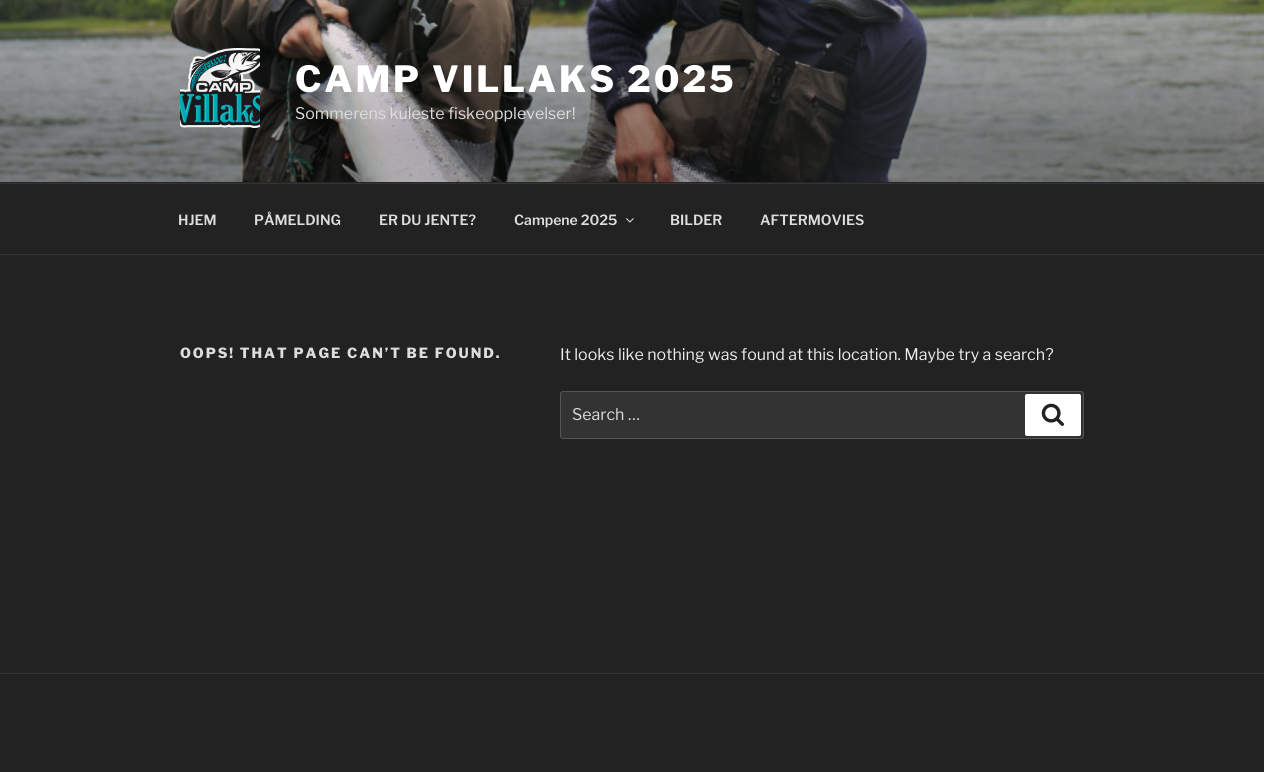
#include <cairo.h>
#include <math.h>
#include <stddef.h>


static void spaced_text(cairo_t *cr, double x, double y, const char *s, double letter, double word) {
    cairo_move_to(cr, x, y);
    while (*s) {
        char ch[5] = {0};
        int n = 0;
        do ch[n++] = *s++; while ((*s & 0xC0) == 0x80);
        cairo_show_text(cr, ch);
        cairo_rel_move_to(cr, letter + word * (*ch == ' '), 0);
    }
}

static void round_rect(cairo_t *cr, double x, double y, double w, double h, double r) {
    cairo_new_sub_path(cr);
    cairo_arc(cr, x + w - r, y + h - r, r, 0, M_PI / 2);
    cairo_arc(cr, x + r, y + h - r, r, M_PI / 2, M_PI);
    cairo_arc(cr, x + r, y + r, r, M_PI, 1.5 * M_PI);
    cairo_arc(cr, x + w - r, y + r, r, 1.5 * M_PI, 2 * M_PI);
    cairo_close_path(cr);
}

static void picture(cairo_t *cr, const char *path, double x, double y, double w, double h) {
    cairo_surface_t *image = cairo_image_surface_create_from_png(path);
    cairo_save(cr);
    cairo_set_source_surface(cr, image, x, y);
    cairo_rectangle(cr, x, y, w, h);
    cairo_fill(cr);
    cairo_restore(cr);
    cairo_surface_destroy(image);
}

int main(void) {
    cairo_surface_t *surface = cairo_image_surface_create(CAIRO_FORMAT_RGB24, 1264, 772);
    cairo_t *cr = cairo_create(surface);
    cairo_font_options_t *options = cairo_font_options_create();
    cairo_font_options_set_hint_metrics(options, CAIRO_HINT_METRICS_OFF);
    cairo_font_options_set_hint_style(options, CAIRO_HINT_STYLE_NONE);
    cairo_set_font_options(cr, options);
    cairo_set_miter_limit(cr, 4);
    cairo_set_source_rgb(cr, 0.133, 0.133, 0.133);
    cairo_paint(cr);
    cairo_set_source_rgb(cr, 0.149, 0.149, 0.149);
    cairo_rectangle(cr, 0, 182, 1264, 1);
    cairo_fill(cr);
    picture(cr, "img1.png", 0, 0, 1264, 182);
    picture(cr, "img2.png", 180, 48, 80, 80);
    cairo_select_font_face(cr, "Libre Franklin Thin", CAIRO_FONT_SLANT_NORMAL, CAIRO_FONT_WEIGHT_NORMAL);
    cairo_set_font_size(cr, 36);
    cairo_set_source_rgb(cr, 1, 1, 1);
    spaced_text(cr, 295, 92, "CAMP VILLAKS 2025", 2.9, 0);
    cairo_select_font_face(cr, "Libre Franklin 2 Thin", CAIRO_FONT_SLANT_NORMAL, CAIRO_FONT_WEIGHT_NORMAL);
    cairo_set_font_size(cr, 16);
    cairo_set_source_rgb(cr, 0.867, 0.867, 0.867);
    cairo_move_to(cr, 295, 119);
    cairo_show_text(cr, "Sommerens kuleste fiskeopplevelser!");
    cairo_set_source_rgb(cr, 0.2, 0.2, 0.2);
    cairo_rectangle(cr, 0, 183, 1264, 1);
    cairo_fill(cr);
    cairo_rectangle(cr, 0, 254, 1264, 1);
    cairo_fill(cr);
    cairo_select_font_face(cr, "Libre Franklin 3 Thin", CAIRO_FONT_SLANT_NORMAL, CAIRO_FONT_WEIGHT_NORMAL);
    cairo_set_font_size(cr, 14);
    cairo_set_source_rgb(cr, 0.867, 0.867, 0.867);
    cairo_move_to(cr, 178, 225);
    cairo_show_text(cr, "HJEM");
    cairo_move_to(cr, 254, 225);
    cairo_show_text(cr, "PÅMELDING");
    cairo_move_to(cr, 379, 225);
    cairo_show_text(cr, "ER DU JENTE?");
    cairo_move_to(cr, 514, 225);
    cairo_show_text(cr, "Campene 2025");
    picture(cr, "img3.png", 626, 218, 8, 5);
    cairo_move_to(cr, 670, 225);
    cairo_show_text(cr, "BILDER");
    cairo_move_to(cr, 760, 225);
    cairo_show_text(cr, "AFTERMOVIES");
    cairo_select_font_face(cr, "Libre Franklin Thin", CAIRO_FONT_SLANT_NORMAL, CAIRO_FONT_WEIGHT_NORMAL);
    spaced_text(cr, 180, 358, "OOPS! THAT PAGE CAN’T BE FOUND.", 1.95, 0);
    cairo_select_font_face(cr, "Libre Franklin 2 Thin", CAIRO_FONT_SLANT_NORMAL, CAIRO_FONT_WEIGHT_NORMAL);
    cairo_set_font_size(cr, 16);
    cairo_set_source_rgb(cr, 0.933, 0.933, 0.933);
    cairo_move_to(cr, 560, 360);
    cairo_show_text(cr, "It looks like nothing was found at this location. Maybe try a search?");
    cairo_set_source_rgb(cr, 0.2, 0.2, 0.2);
    round_rect(cr, 560.5, 391.5, 523, 47, 2.5);
    cairo_fill_preserve(cr);
    cairo_set_source_rgb(cr, 0.333, 0.333, 0.333);
    cairo_set_line_width(cr, 1);
    cairo_stroke(cr);
    cairo_set_source_rgb(cr, 0.867, 0.867, 0.867);
    cairo_move_to(cr, 572, 420);
    cairo_show_text(cr, "Search …");
    cairo_set_source_rgb(cr, 1, 1, 1);
    round_rect(cr, 1025, 394, 56, 42, 2);
    cairo_fill(cr);
    picture(cr, "img4.png", 1041, 403, 23, 23);
    cairo_set_source_rgb(cr, 0.2, 0.2, 0.2);
    cairo_rectangle(cr, 0, 673, 1264, 1);
    cairo_fill(cr);
    cairo_surface_write_to_png(surface, "page.png");
    cairo_font_options_destroy(options);
    cairo_destroy(cr);
    cairo_surface_destroy(surface);
    return 0;
}
